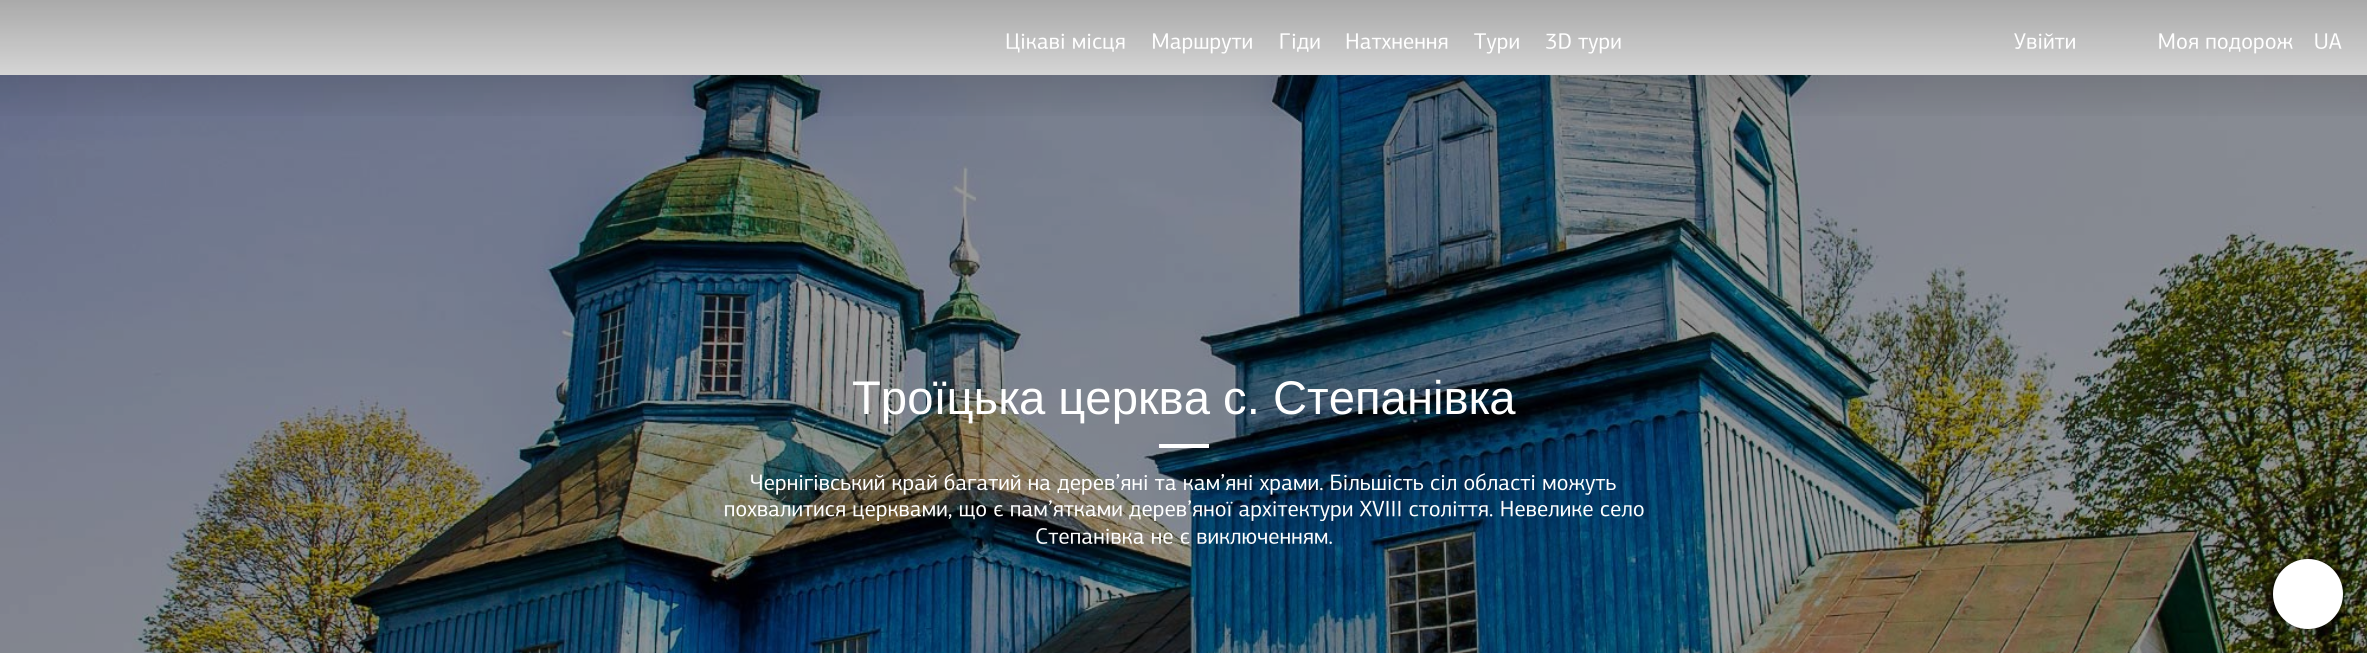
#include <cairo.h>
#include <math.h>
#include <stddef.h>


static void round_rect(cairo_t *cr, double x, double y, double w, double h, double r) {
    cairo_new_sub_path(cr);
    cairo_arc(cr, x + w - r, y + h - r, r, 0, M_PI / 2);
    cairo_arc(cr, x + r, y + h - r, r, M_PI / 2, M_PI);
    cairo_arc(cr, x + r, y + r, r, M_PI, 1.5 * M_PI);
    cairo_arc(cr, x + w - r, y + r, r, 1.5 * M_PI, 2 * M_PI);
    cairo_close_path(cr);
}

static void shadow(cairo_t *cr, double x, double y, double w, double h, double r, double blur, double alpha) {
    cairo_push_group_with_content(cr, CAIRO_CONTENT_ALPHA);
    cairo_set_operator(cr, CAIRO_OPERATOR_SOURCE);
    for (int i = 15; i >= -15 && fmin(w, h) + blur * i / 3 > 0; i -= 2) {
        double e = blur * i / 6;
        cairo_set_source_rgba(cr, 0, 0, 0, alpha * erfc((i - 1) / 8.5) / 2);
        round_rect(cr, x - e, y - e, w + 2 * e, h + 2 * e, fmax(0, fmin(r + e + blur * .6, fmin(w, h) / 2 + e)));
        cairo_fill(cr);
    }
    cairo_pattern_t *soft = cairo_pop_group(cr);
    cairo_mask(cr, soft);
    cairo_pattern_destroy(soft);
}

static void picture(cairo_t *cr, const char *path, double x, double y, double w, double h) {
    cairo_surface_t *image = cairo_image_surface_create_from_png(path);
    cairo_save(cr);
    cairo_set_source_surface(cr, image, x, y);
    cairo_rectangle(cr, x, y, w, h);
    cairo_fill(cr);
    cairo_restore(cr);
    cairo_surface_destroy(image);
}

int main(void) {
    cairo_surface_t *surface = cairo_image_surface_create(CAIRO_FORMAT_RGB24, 2367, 653);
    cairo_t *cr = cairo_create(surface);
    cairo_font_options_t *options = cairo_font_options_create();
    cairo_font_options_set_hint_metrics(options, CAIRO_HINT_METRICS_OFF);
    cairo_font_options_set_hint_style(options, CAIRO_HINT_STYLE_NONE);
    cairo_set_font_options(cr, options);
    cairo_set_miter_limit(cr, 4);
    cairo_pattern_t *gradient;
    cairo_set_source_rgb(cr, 0.949, 0.949, 0.949);
    cairo_paint(cr);
    picture(cr, "img10.png", 0, 75, 2367, 578);
    gradient = cairo_pattern_create_linear(1184, 0, 1184, 125);
    cairo_pattern_add_color_stop_rgba(gradient, 0, 0, 0, 0, 0.3);
    cairo_pattern_add_color_stop_rgba(gradient, 1, 0, 0, 0, 0);
    cairo_set_source(cr, gradient);
    cairo_pattern_destroy(gradient);
    cairo_rectangle(cr, 0, 0, 2367, 116);
    cairo_fill(cr);
    picture(cr, "img1.png", 1006, 33, 119, 20);
    picture(cr, "img2.png", 1153, 33, 99, 21);
    picture(cr, "img3.png", 1280, 33, 40, 19);
    picture(cr, "img4.png", 1346, 33, 102, 16);
    picture(cr, "img5.png", 1474, 33, 45, 21);
    picture(cr, "img6.png", 1546, 33, 75, 21);
    picture(cr, "img7.png", 2014, 33, 61, 16);
    picture(cr, "img8.png", 2159, 33, 134, 21);
    picture(cr, "img9.png", 2315, 33, 27, 16);
    cairo_select_font_face(cr, "Liberation Sans", CAIRO_FONT_SLANT_NORMAL, CAIRO_FONT_WEIGHT_NORMAL);
    cairo_set_font_size(cr, 47.25);
    cairo_set_source_rgb(cr, 1, 1, 1);
    cairo_move_to(cr, 852, 414);
    cairo_show_text(cr, "Троїцька церква с. Степанівка");
    cairo_rectangle(cr, 1159, 444, 50, 4);
    cairo_fill(cr);
    picture(cr, "img11.png", 751, 473, 865, 22);
    picture(cr, "img12.png", 725, 500, 919, 22);
    picture(cr, "img13.png", 1036, 528, 296, 17);
    cairo_set_source_rgb(cr, 0, 0, 0);
    shadow(cr, 2273, 561, 70, 70, 35, 6, 0.4);
    cairo_set_source_rgb(cr, 1, 1, 1);
    cairo_arc(cr, 2308, 594, 35, 0, 2 * M_PI);
    cairo_fill(cr);
    cairo_surface_write_to_png(surface, "page.png");
    cairo_font_options_destroy(options);
    cairo_destroy(cr);
    cairo_surface_destroy(surface);
    return 0;
}
